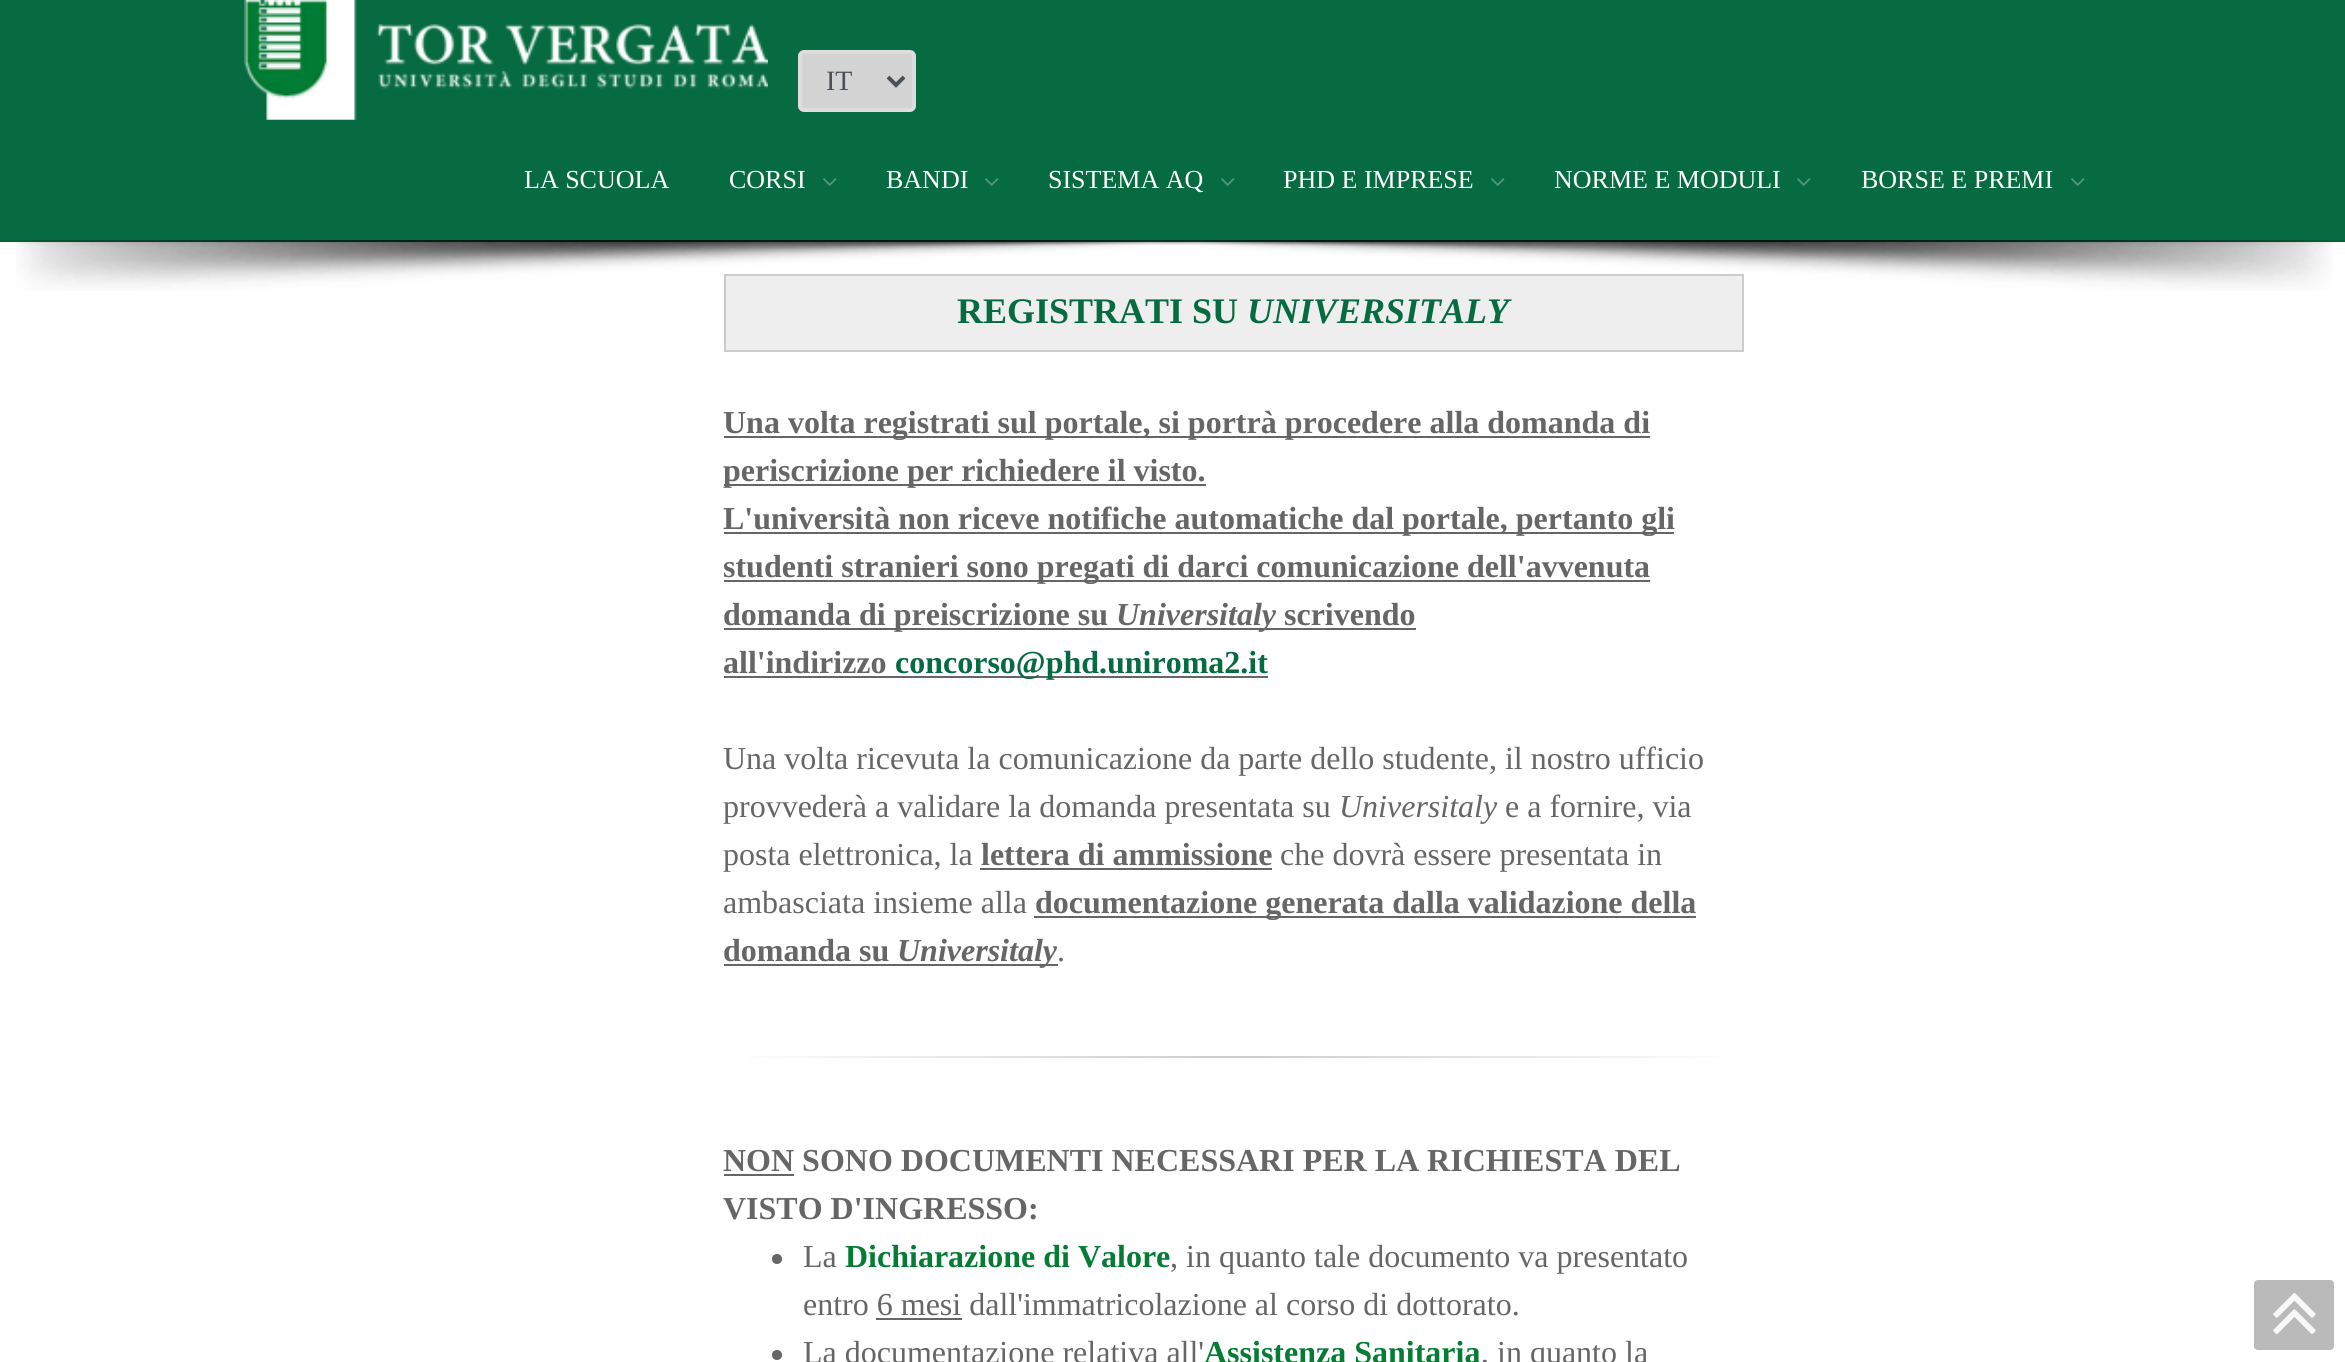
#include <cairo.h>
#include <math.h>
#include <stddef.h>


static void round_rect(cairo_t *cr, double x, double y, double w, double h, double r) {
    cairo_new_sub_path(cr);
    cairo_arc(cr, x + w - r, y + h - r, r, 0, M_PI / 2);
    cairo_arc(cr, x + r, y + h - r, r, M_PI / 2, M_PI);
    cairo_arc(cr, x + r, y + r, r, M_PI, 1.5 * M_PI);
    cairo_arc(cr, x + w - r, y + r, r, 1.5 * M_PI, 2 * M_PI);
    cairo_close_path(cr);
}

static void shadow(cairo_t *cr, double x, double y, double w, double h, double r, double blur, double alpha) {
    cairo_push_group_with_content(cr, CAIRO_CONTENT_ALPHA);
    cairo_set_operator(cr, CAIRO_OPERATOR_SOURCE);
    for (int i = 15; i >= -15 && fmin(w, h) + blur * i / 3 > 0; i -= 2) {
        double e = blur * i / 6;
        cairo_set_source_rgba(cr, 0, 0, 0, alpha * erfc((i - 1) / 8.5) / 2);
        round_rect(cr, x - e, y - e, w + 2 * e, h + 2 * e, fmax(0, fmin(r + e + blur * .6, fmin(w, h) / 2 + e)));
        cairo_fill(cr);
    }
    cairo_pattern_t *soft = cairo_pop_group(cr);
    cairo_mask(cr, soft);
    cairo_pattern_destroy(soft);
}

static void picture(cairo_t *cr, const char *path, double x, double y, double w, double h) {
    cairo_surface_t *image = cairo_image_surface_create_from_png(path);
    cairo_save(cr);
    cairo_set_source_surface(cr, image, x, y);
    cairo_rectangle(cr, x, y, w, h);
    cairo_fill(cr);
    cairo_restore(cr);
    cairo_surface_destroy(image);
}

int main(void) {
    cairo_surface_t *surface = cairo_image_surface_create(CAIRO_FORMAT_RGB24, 2345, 1362);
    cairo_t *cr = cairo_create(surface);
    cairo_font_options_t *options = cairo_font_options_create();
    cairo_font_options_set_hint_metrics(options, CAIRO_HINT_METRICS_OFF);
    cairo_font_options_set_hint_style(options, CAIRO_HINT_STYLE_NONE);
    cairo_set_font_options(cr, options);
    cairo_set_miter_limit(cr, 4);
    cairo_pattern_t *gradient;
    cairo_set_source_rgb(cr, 1, 1, 1);
    cairo_paint(cr);
    cairo_set_source_rgb(cr, 0, 0, 0);
    shadow(cr, 0, 0, 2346, 242, 0, 2, 0.1);
    cairo_set_source_rgb(cr, 0.024, 0.42, 0.255);
    cairo_rectangle(cr, 0, 0, 2345, 240);
    cairo_fill(cr);
    cairo_set_source_rgb(cr, 0.024, 0.384, 0.235);
    cairo_rectangle(cr, 0, 240, 2345, 2);
    cairo_fill(cr);
    cairo_set_source_rgb(cr, 0.827, 0.827, 0.827);
    round_rect(cr, 800, 52, 114, 58, 4);
    cairo_fill_preserve(cr);
    cairo_set_source_rgb(cr, 0.867, 0.867, 0.867);
    cairo_set_line_width(cr, 4);
    cairo_stroke(cr);
    cairo_new_path(cr);
    cairo_move_to(cr, 888, 77);
    cairo_line_to(cr, 896, 85);
    cairo_line_to(cr, 904, 77);
    cairo_set_source_rgb(cr, 0.286, 0.314, 0.341);
    cairo_stroke(cr);
    cairo_select_font_face(cr, "Liberation Serif", CAIRO_FONT_SLANT_NORMAL, CAIRO_FONT_WEIGHT_NORMAL);
    cairo_set_font_size(cr, 28);
    cairo_move_to(cr, 826, 90);
    cairo_show_text(cr, "IT");
    picture(cr, "img1.png", 244, 0, 524, 120);
    cairo_set_font_size(cr, 26);
    cairo_set_source_rgb(cr, 1, 1, 1);
    cairo_move_to(cr, 524, 188);
    cairo_show_text(cr, "LA SCUOLA");
    cairo_move_to(cr, 729, 188);
    cairo_show_text(cr, "CORSI");
    picture(cr, "img2.png", 823, 178, 14, 8);
    cairo_move_to(cr, 886, 188);
    cairo_show_text(cr, "BANDI");
    picture(cr, "img2.png", 985, 178, 14, 8);
    cairo_move_to(cr, 1048, 188);
    cairo_show_text(cr, "SISTEMA AQ");
    picture(cr, "img2.png", 1221, 178, 14, 8);
    cairo_move_to(cr, 1283, 188);
    cairo_show_text(cr, "PHD E IMPRESE");
    picture(cr, "img2.png", 1491, 178, 14, 8);
    cairo_move_to(cr, 1554, 188);
    cairo_show_text(cr, "NORME E MODULI");
    picture(cr, "img2.png", 1797, 178, 14, 8);
    cairo_move_to(cr, 1861, 188);
    cairo_show_text(cr, "BORSE E PREMI");
    picture(cr, "img2.png", 2071, 178, 14, 8);
    cairo_set_source_rgb(cr, 0.933, 0.933, 0.933);
    cairo_rectangle(cr, 725, 275, 1018, 76);
    cairo_fill_preserve(cr);
    cairo_set_source_rgb(cr, 0.8, 0.8, 0.8);
    cairo_set_line_width(cr, 2);
    cairo_stroke(cr);
    picture(cr, "img3.png", 16, 240, 2317, 51);
    cairo_select_font_face(cr, "Liberation Serif", CAIRO_FONT_SLANT_NORMAL, CAIRO_FONT_WEIGHT_BOLD);
    cairo_set_font_size(cr, 36);
    cairo_set_source_rgb(cr, 0.024, 0.42, 0.255);
    cairo_move_to(cr, 957, 323);
    cairo_show_text(cr, "REGISTRATI SU");
    cairo_select_font_face(cr, "Liberation Serif", CAIRO_FONT_SLANT_ITALIC, CAIRO_FONT_WEIGHT_BOLD);
    cairo_move_to(cr, 1247, 323);
    cairo_show_text(cr, "UNIVERSITALY");
    cairo_set_source_rgb(cr, 0.4, 0.4, 0.4);
    cairo_rectangle(cr, 724, 436, 926, 2);
    cairo_fill(cr);
    cairo_select_font_face(cr, "Liberation Serif", CAIRO_FONT_SLANT_NORMAL, CAIRO_FONT_WEIGHT_BOLD);
    cairo_set_font_size(cr, 32);
    cairo_move_to(cr, 723, 433);
    cairo_show_text(cr, "Una volta registrati sul portale, si portrà procedere alla domanda di");
    cairo_rectangle(cr, 724, 484, 482, 2);
    cairo_fill(cr);
    cairo_move_to(cr, 723, 481);
    cairo_show_text(cr, "periscrizione per richiedere il visto.");
    cairo_rectangle(cr, 724, 532, 950, 2);
    cairo_fill(cr);
    cairo_move_to(cr, 723, 529);
    cairo_show_text(cr, "L'università non riceve notifiche automatiche dal portale, pertanto gli");
    cairo_rectangle(cr, 724, 580, 926, 2);
    cairo_fill(cr);
    cairo_move_to(cr, 723, 577);
    cairo_show_text(cr, "studenti stranieri sono pregati di darci comunicazione dell'avvenuta");
    cairo_rectangle(cr, 724, 628, 692, 2);
    cairo_fill(cr);
    cairo_move_to(cr, 723, 625);
    cairo_show_text(cr, "domanda di preiscrizione su");
    cairo_select_font_face(cr, "Liberation Serif", CAIRO_FONT_SLANT_ITALIC, CAIRO_FONT_WEIGHT_BOLD);
    cairo_move_to(cr, 1116, 625);
    cairo_show_text(cr, "Universitaly");
    cairo_select_font_face(cr, "Liberation Serif", CAIRO_FONT_SLANT_NORMAL, CAIRO_FONT_WEIGHT_BOLD);
    cairo_move_to(cr, 1284, 625);
    cairo_show_text(cr, "scrivendo");
    cairo_move_to(cr, 723, 673);
    cairo_show_text(cr, "all'indirizzo");
    cairo_rectangle(cr, 724, 676, 544, 2);
    cairo_fill(cr);
    cairo_set_source_rgb(cr, 0.024, 0.42, 0.255);
    cairo_move_to(cr, 895, 673);
    cairo_show_text(cr, "concorso@phd.uniroma2.it");
    cairo_select_font_face(cr, "Liberation Serif", CAIRO_FONT_SLANT_NORMAL, CAIRO_FONT_WEIGHT_NORMAL);
    cairo_set_source_rgb(cr, 0.4, 0.4, 0.4);
    cairo_move_to(cr, 723, 769);
    cairo_show_text(cr, "Una volta ricevuta la comunicazione da parte dello studente, il nostro ufficio");
    cairo_move_to(cr, 723, 817);
    cairo_show_text(cr, "provvederà a validare la domanda presentata su");
    cairo_select_font_face(cr, "Liberation Serif", CAIRO_FONT_SLANT_ITALIC, CAIRO_FONT_WEIGHT_NORMAL);
    cairo_move_to(cr, 1339, 817);
    cairo_show_text(cr, "Universitaly");
    cairo_select_font_face(cr, "Liberation Serif", CAIRO_FONT_SLANT_NORMAL, CAIRO_FONT_WEIGHT_NORMAL);
    cairo_move_to(cr, 1505, 817);
    cairo_show_text(cr, "e a fornire, via");
    cairo_move_to(cr, 723, 865);
    cairo_show_text(cr, "posta elettronica, la");
    cairo_select_font_face(cr, "Liberation Serif", CAIRO_FONT_SLANT_NORMAL, CAIRO_FONT_WEIGHT_BOLD);
    cairo_move_to(cr, 981, 865);
    cairo_show_text(cr, "lettera di ammissione");
    cairo_rectangle(cr, 980, 868, 292, 2);
    cairo_fill(cr);
    cairo_select_font_face(cr, "Liberation Serif", CAIRO_FONT_SLANT_NORMAL, CAIRO_FONT_WEIGHT_NORMAL);
    cairo_move_to(cr, 1280, 865);
    cairo_show_text(cr, "che dovrà essere presentata in");
    cairo_move_to(cr, 723, 913);
    cairo_show_text(cr, "ambasciata insieme alla");
    cairo_rectangle(cr, 1034, 916, 662, 2);
    cairo_fill(cr);
    cairo_select_font_face(cr, "Liberation Serif", CAIRO_FONT_SLANT_NORMAL, CAIRO_FONT_WEIGHT_BOLD);
    cairo_move_to(cr, 1035, 913);
    cairo_show_text(cr, "documentazione generata dalla validazione della");
    cairo_move_to(cr, 723, 961);
    cairo_show_text(cr, "domanda su");
    cairo_rectangle(cr, 724, 964, 334, 2);
    cairo_fill(cr);
    cairo_select_font_face(cr, "Liberation Serif", CAIRO_FONT_SLANT_ITALIC, CAIRO_FONT_WEIGHT_BOLD);
    cairo_move_to(cr, 897, 961);
    cairo_show_text(cr, "Universitaly");
    cairo_select_font_face(cr, "Liberation Serif", CAIRO_FONT_SLANT_NORMAL, CAIRO_FONT_WEIGHT_NORMAL);
    cairo_move_to(cr, 1057, 961);
    cairo_show_text(cr, ".");
    gradient = cairo_pattern_create_linear(724, 1057, 1744, 1057);
    cairo_pattern_add_color_stop_rgba(gradient, 0, 1, 1, 1, 1);
    cairo_pattern_add_color_stop_rgba(gradient, 0.5, 0.8, 0.8, 0.8, 1);
    cairo_pattern_add_color_stop_rgba(gradient, 1, 1, 1, 1, 1);
    cairo_set_source(cr, gradient);
    cairo_pattern_destroy(gradient);
    cairo_rectangle(cr, 749, 1056, 970, 2);
    cairo_fill(cr);
    cairo_select_font_face(cr, "Liberation Serif", CAIRO_FONT_SLANT_NORMAL, CAIRO_FONT_WEIGHT_BOLD);
    cairo_set_source_rgb(cr, 0.4, 0.4, 0.4);
    cairo_move_to(cr, 723, 1171);
    cairo_show_text(cr, "NON SONO DOCUMENTI NECESSARI PER LA RICHIESTA DEL");
    cairo_rectangle(cr, 724, 1174, 70, 2);
    cairo_fill(cr);
    cairo_move_to(cr, 723, 1219);
    cairo_show_text(cr, "VISTO D'INGRESSO:");
    cairo_new_path(cr);
    cairo_arc(cr, 777, 1259, 5, 0, 2 * M_PI);
    cairo_fill(cr);
    cairo_select_font_face(cr, "Liberation Serif", CAIRO_FONT_SLANT_NORMAL, CAIRO_FONT_WEIGHT_NORMAL);
    cairo_move_to(cr, 803, 1267);
    cairo_show_text(cr, "La");
    cairo_select_font_face(cr, "Liberation Serif", CAIRO_FONT_SLANT_NORMAL, CAIRO_FONT_WEIGHT_BOLD);
    cairo_set_source_rgb(cr, 0.016, 0.486, 0.204);
    cairo_move_to(cr, 845, 1267);
    cairo_show_text(cr, "Dichiarazione di Valore");
    cairo_select_font_face(cr, "Liberation Serif", CAIRO_FONT_SLANT_NORMAL, CAIRO_FONT_WEIGHT_NORMAL);
    cairo_set_source_rgb(cr, 0.4, 0.4, 0.4);
    cairo_move_to(cr, 1170, 1267);
    cairo_show_text(cr, ", in quanto tale documento va presentato");
    cairo_move_to(cr, 803, 1315);
    cairo_show_text(cr, "entro 6 mesi dall'immatricolazione al corso di dottorato.");
    cairo_rectangle(cr, 876, 1318, 86, 2);
    cairo_fill(cr);
    cairo_arc(cr, 777, 1355, 5, 0, 2 * M_PI);
    cairo_fill(cr);
    cairo_move_to(cr, 803, 1363);
    cairo_show_text(cr, "La documentazione relativa all'");
    cairo_select_font_face(cr, "Liberation Serif", CAIRO_FONT_SLANT_NORMAL, CAIRO_FONT_WEIGHT_BOLD);
    cairo_set_source_rgb(cr, 0.016, 0.486, 0.204);
    cairo_move_to(cr, 1204, 1363);
    cairo_show_text(cr, "Assistenza Sanitaria");
    cairo_select_font_face(cr, "Liberation Serif", CAIRO_FONT_SLANT_NORMAL, CAIRO_FONT_WEIGHT_NORMAL);
    cairo_set_source_rgb(cr, 0.4, 0.4, 0.4);
    cairo_move_to(cr, 1481, 1363);
    cairo_show_text(cr, ", in quanto la");
    cairo_set_source_rgb(cr, 0.729, 0.729, 0.729);
    round_rect(cr, 2254, 1280, 80, 70, 4);
    cairo_fill(cr);
    picture(cr, "img4.png", 2273, 1293, 43, 41);
    cairo_surface_write_to_png(surface, "page.png");
    cairo_font_options_destroy(options);
    cairo_destroy(cr);
    cairo_surface_destroy(surface);
    return 0;
}
